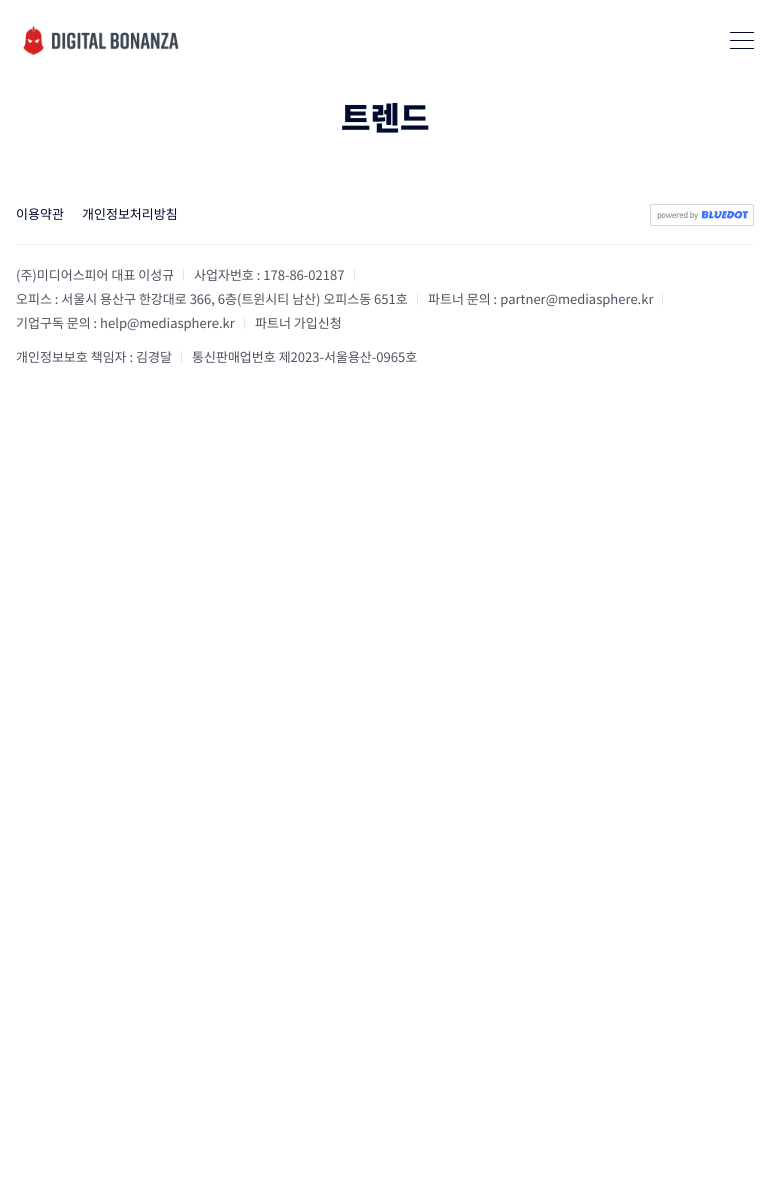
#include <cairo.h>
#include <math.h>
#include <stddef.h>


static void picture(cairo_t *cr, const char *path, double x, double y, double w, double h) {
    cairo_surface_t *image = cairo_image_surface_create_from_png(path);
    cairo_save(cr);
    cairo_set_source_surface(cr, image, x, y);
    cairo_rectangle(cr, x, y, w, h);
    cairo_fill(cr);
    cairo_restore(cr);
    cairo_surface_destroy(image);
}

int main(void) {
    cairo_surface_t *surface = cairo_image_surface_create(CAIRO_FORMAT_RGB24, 770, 1184);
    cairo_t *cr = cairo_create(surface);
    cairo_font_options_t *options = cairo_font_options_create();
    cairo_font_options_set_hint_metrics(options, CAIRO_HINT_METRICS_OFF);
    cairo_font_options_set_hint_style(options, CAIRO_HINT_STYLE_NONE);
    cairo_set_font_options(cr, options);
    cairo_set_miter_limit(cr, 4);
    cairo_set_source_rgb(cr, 1, 1, 1);
    cairo_paint(cr);
    picture(cr, "img1.png", 23, 25, 156, 30);
    cairo_set_source_rgb(cr, 0, 0.047, 0.176);
    cairo_rectangle(cr, 730, 32, 24, 1);
    cairo_fill(cr);
    cairo_rectangle(cr, 730, 40, 24, 1);
    cairo_fill(cr);
    cairo_rectangle(cr, 730, 48, 24, 1);
    cairo_fill(cr);
    cairo_select_font_face(cr, "Noto Sans KR Black", CAIRO_FONT_SLANT_NORMAL, CAIRO_FONT_WEIGHT_NORMAL);
    cairo_set_font_size(cr, 32);
    cairo_move_to(cr, 341, 130);
    cairo_show_text(cr, "트렌드");
    cairo_select_font_face(cr, "Noto Sans KR", CAIRO_FONT_SLANT_NORMAL, CAIRO_FONT_WEIGHT_NORMAL);
    cairo_set_font_size(cr, 13);
    cairo_move_to(cr, 16, 219);
    cairo_show_text(cr, "이용약관");
    cairo_move_to(cr, 82, 219);
    cairo_show_text(cr, "개인정보처리방침");
    picture(cr, "img2.png", 650, 204, 104, 22);
    cairo_set_source_rgb(cr, 0.949, 0.949, 0.949);
    cairo_rectangle(cr, 16, 244, 738, 1);
    cairo_fill(cr);
    cairo_set_source_rgb(cr, 0.31, 0.322, 0.373);
    cairo_move_to(cr, 16, 280);
    cairo_show_text(cr, "(주)미디어스피어 대표 이성규");
    cairo_set_source_rgb(cr, 0.902, 0.902, 0.902);
    cairo_rectangle(cr, 183, 269, 1, 12);
    cairo_fill(cr);
    cairo_set_source_rgb(cr, 0.31, 0.322, 0.373);
    cairo_move_to(cr, 194, 280);
    cairo_show_text(cr, "사업자번호 : 178-86-02187");
    cairo_set_source_rgb(cr, 0.902, 0.902, 0.902);
    cairo_rectangle(cr, 354, 269, 1, 12);
    cairo_fill(cr);
    cairo_set_source_rgb(cr, 0.31, 0.322, 0.373);
    cairo_move_to(cr, 16, 304);
    cairo_show_text(cr, "오피스 : 서울시 용산구 한강대로 366, 6층(트윈시티 남산) 오피스동 651호");
    cairo_set_source_rgb(cr, 0.902, 0.902, 0.902);
    cairo_rectangle(cr, 417, 293, 1, 12);
    cairo_fill(cr);
    cairo_set_source_rgb(cr, 0.31, 0.322, 0.373);
    cairo_move_to(cr, 428, 304);
    cairo_show_text(cr, "파트너 문의 : partner@mediasphere.kr");
    cairo_set_source_rgb(cr, 0.902, 0.902, 0.902);
    cairo_rectangle(cr, 662, 293, 1, 12);
    cairo_fill(cr);
    cairo_set_source_rgb(cr, 0.31, 0.322, 0.373);
    cairo_move_to(cr, 16, 328);
    cairo_show_text(cr, "기업구독 문의 : help@mediasphere.kr");
    cairo_set_source_rgb(cr, 0.902, 0.902, 0.902);
    cairo_rectangle(cr, 244, 317, 1, 12);
    cairo_fill(cr);
    cairo_set_source_rgb(cr, 0.31, 0.322, 0.373);
    cairo_move_to(cr, 255, 328);
    cairo_show_text(cr, "파트너 가입신청");
    cairo_move_to(cr, 16, 362);
    cairo_show_text(cr, "개인정보보호 책임자 : 김경달");
    cairo_set_source_rgb(cr, 0.902, 0.902, 0.902);
    cairo_rectangle(cr, 181, 351, 1, 12);
    cairo_fill(cr);
    cairo_set_source_rgb(cr, 0.31, 0.322, 0.373);
    cairo_move_to(cr, 192, 362);
    cairo_show_text(cr, "통신판매업번호 제2023-서울용산-0965호");
    cairo_surface_write_to_png(surface, "page.png");
    cairo_font_options_destroy(options);
    cairo_destroy(cr);
    cairo_surface_destroy(surface);
    return 0;
}
